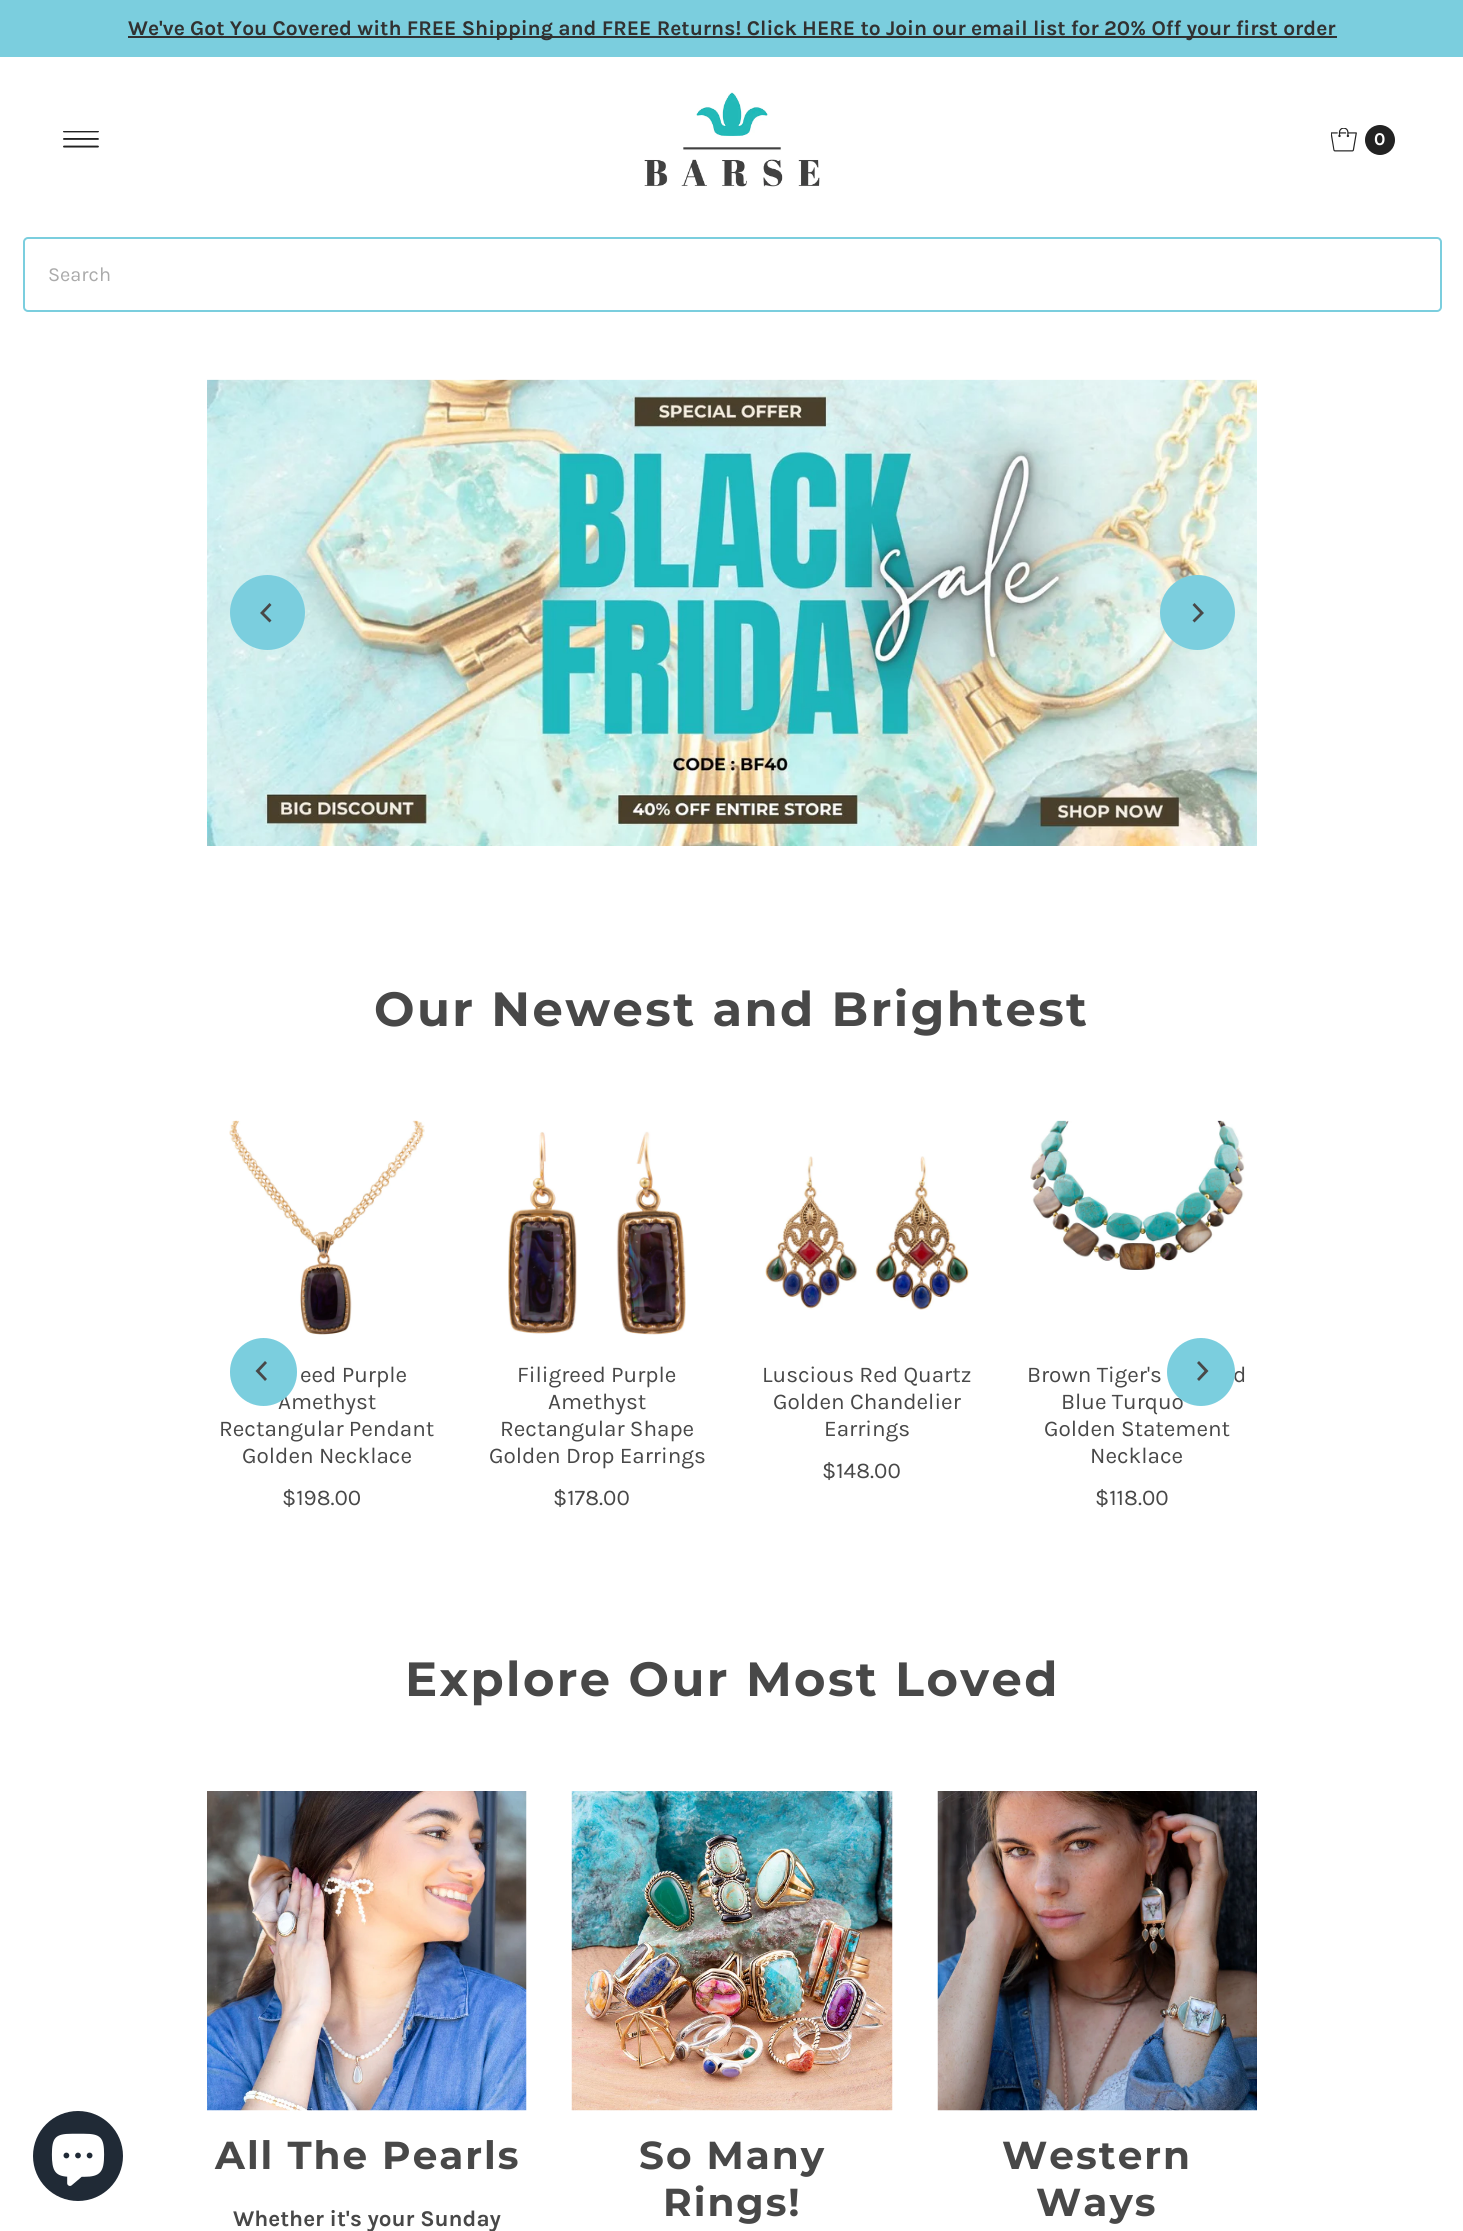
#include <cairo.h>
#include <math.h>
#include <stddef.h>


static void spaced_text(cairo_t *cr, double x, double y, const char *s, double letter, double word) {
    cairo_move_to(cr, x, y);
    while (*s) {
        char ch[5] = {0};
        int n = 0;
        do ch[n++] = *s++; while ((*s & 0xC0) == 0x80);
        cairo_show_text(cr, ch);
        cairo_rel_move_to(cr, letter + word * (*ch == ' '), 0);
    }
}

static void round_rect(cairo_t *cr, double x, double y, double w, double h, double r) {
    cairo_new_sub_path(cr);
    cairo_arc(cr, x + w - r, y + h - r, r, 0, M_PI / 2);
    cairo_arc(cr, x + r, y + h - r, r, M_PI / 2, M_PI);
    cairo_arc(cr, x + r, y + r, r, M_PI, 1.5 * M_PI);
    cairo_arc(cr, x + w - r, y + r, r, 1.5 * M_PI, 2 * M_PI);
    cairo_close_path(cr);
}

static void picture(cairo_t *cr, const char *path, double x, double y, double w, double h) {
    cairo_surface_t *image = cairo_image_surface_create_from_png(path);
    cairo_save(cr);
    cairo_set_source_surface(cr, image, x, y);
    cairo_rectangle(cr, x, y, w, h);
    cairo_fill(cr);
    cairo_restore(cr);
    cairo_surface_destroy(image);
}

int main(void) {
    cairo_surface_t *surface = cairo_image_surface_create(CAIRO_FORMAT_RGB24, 1463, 2231);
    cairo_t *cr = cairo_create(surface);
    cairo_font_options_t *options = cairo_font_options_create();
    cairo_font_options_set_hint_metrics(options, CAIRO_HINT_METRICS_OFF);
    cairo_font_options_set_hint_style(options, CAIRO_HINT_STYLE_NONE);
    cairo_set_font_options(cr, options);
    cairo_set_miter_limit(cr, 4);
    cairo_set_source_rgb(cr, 1, 1, 1);
    cairo_paint(cr);
    cairo_set_source_rgb(cr, 0.482, 0.808, 0.871);
    cairo_rectangle(cr, 0, 0, 1463, 57);
    cairo_fill(cr);
    cairo_set_source_rgb(cr, 0.192, 0.192, 0.192);
    cairo_rectangle(cr, 128, 36, 1209, 2);
    cairo_fill(cr);
    cairo_select_font_face(cr, "Karla", CAIRO_FONT_SLANT_NORMAL, CAIRO_FONT_WEIGHT_BOLD);
    cairo_set_font_size(cr, 21);
    cairo_move_to(cr, 128, 35);
    cairo_show_text(cr, "We've Got You Covered with FREE Shipping and FREE Returns! Click HERE to Join our email list for 20% Off your first order");
    picture(cr, "img1.png", 63, 131, 36, 17);
    picture(cr, "img2.png", 644, 92, 176, 95);
    picture(cr, "img3.png", 1331, 128, 26, 24);
    cairo_set_source_rgb(cr, 0.133, 0.133, 0.133);
    cairo_arc(cr, 1380, 140, 15, 0, 2 * M_PI);
    cairo_fill(cr);
    cairo_set_font_size(cr, 18);
    cairo_set_source_rgb(cr, 1, 1, 1);
    cairo_move_to(cr, 1374, 145);
    cairo_show_text(cr, "0");
    round_rect(cr, 24, 238, 1417, 73, 4);
    cairo_set_source_rgb(cr, 0.482, 0.808, 0.871);
    cairo_stroke(cr);
    cairo_select_font_face(cr, "Karla", CAIRO_FONT_SLANT_NORMAL, CAIRO_FONT_WEIGHT_NORMAL);
    cairo_set_font_size(cr, 20);
    cairo_set_source_rgb(cr, 0.667, 0.667, 0.667);
    cairo_move_to(cr, 48, 281);
    cairo_show_text(cr, "Search");
    picture(cr, "img4.png", 207, 379, 1050, 467);
    cairo_set_source_rgb(cr, 0.482, 0.808, 0.871);
    cairo_arc(cr, 267.5, 612.5, 37.5, 0, 2 * M_PI);
    cairo_fill(cr);
    cairo_set_source_rgb(cr, 0.282, 0.282, 0.282);
    cairo_new_path(cr);
    cairo_move_to(cr, 260, 613);
    cairo_line_to(cr, 269.5, 622.5);
    cairo_line_to(cr, 271.5, 620.5);
    cairo_line_to(cr, 264, 613);
    cairo_line_to(cr, 271.5, 605);
    cairo_line_to(cr, 269.5, 603);
    cairo_close_path(cr);
    cairo_fill(cr);
    cairo_set_source_rgb(cr, 0.482, 0.808, 0.871);
    cairo_arc(cr, 1197.5, 612.5, 37.5, 0, 2 * M_PI);
    cairo_fill(cr);
    cairo_set_source_rgb(cr, 0.282, 0.282, 0.282);
    cairo_new_path(cr);
    cairo_move_to(cr, 1204, 613);
    cairo_line_to(cr, 1194.5, 603);
    cairo_line_to(cr, 1192.5, 605);
    cairo_line_to(cr, 1200, 613);
    cairo_line_to(cr, 1192.5, 620.5);
    cairo_line_to(cr, 1194.5, 622.5);
    cairo_close_path(cr);
    cairo_fill(cr);
    cairo_select_font_face(cr, "Montserrat", CAIRO_FONT_SLANT_NORMAL, CAIRO_FONT_WEIGHT_BOLD);
    cairo_set_font_size(cr, 48);
    spaced_text(cr, 374, 1026, "Our Newest and Brightest", 2.4, 0);
    cairo_select_font_face(cr, "Karla", CAIRO_FONT_SLANT_NORMAL, CAIRO_FONT_WEIGHT_NORMAL);
    cairo_set_font_size(cr, 22.5);
    cairo_move_to(cr, 278, 1409);
    cairo_show_text(cr, "Amethyst");
    cairo_set_source_rgb(cr, 0.482, 0.808, 0.871);
    round_rect(cr, 230, 1338, 67, 68, 33.5);
    cairo_fill(cr);
    cairo_set_source_rgb(cr, 0.282, 0.282, 0.282);
    cairo_new_path(cr);
    cairo_move_to(cr, 255.5, 1371);
    cairo_line_to(cr, 265, 1381);
    cairo_line_to(cr, 267, 1379);
    cairo_line_to(cr, 259.5, 1371);
    cairo_line_to(cr, 267, 1363);
    cairo_line_to(cr, 265, 1361);
    cairo_close_path(cr);
    cairo_fill(cr);
    cairo_move_to(cr, 1233, 1382);
    cairo_show_text(cr, "d");
    cairo_move_to(cr, 1061, 1409);
    cairo_show_text(cr, "Blue Turquo");
    cairo_set_source_rgb(cr, 0.482, 0.808, 0.871);
    cairo_new_path(cr);
    cairo_arc(cr, 1201, 1372, 34, 0, 2 * M_PI);
    cairo_fill(cr);
    cairo_set_source_rgb(cr, 0.282, 0.282, 0.282);
    cairo_new_path(cr);
    cairo_move_to(cr, 1208.5, 1371);
    cairo_line_to(cr, 1199, 1361);
    cairo_line_to(cr, 1197, 1363);
    cairo_line_to(cr, 1204.5, 1371);
    cairo_line_to(cr, 1197, 1379);
    cairo_line_to(cr, 1199, 1381);
    cairo_close_path(cr);
    cairo_fill(cr);
    picture(cr, "img5.png", 229, 1120, 196, 215);
    cairo_move_to(cr, 300, 1382);
    cairo_show_text(cr, "eed Purple");
    cairo_move_to(cr, 219, 1436);
    cairo_show_text(cr, "Rectangular Pendant");
    cairo_move_to(cr, 242, 1463);
    cairo_show_text(cr, "Golden Necklace");
    cairo_move_to(cr, 282, 1505);
    cairo_show_text(cr, "$198.00");
    picture(cr, "img6.png", 508, 1131, 178, 204);
    cairo_move_to(cr, 517, 1382);
    cairo_show_text(cr, "Filigreed Purple");
    cairo_move_to(cr, 548, 1409);
    cairo_show_text(cr, "Amethyst");
    cairo_move_to(cr, 500, 1436);
    cairo_show_text(cr, "Rectangular Shape");
    cairo_move_to(cr, 489, 1463);
    cairo_show_text(cr, "Golden Drop Earrings");
    cairo_move_to(cr, 553, 1505);
    cairo_show_text(cr, "$178.00");
    picture(cr, "img7.png", 765, 1156, 204, 154);
    cairo_move_to(cr, 762, 1382);
    cairo_show_text(cr, "Luscious Red Quartz");
    cairo_move_to(cr, 773, 1409);
    cairo_show_text(cr, "Golden Chandelier");
    cairo_move_to(cr, 824, 1436);
    cairo_show_text(cr, "Earrings");
    cairo_move_to(cr, 822, 1478);
    cairo_show_text(cr, "$148.00");
    picture(cr, "img8.png", 1030, 1120, 215, 150);
    cairo_move_to(cr, 1027, 1382);
    cairo_show_text(cr, "Brown Tiger's");
    cairo_move_to(cr, 1044, 1436);
    cairo_show_text(cr, "Golden Statement");
    cairo_move_to(cr, 1090, 1463);
    cairo_show_text(cr, "Necklace");
    cairo_move_to(cr, 1095, 1505);
    cairo_show_text(cr, "$118.00");
    cairo_select_font_face(cr, "Montserrat", CAIRO_FONT_SLANT_NORMAL, CAIRO_FONT_WEIGHT_BOLD);
    cairo_set_font_size(cr, 48);
    spaced_text(cr, 405, 1696, "Explore Our Most Loved", 2.4, 0);
    picture(cr, "img9.png", 207, 1791, 320, 320);
    cairo_set_font_size(cr, 39);
    spaced_text(cr, 215, 2169, "All The Pearls", 2, 0);
    cairo_select_font_face(cr, "Karla", CAIRO_FONT_SLANT_NORMAL, CAIRO_FONT_WEIGHT_BOLD);
    cairo_set_font_size(cr, 22.5);
    cairo_move_to(cr, 233, 2226);
    cairo_show_text(cr, "Whether it's your Sunday");
    picture(cr, "img10.png", 571, 1791, 322, 320);
    cairo_select_font_face(cr, "Montserrat", CAIRO_FONT_SLANT_NORMAL, CAIRO_FONT_WEIGHT_BOLD);
    cairo_set_font_size(cr, 39);
    spaced_text(cr, 639, 2169, "So Many", 2, 0);
    spaced_text(cr, 663, 2216, "Rings!", 2, 0);
    picture(cr, "img11.png", 937, 1791, 320, 320);
    spaced_text(cr, 1002, 2169, "Western", 2, 0);
    spaced_text(cr, 1036, 2216, "Ways", 2, 0);
    cairo_set_source_rgb(cr, 0.125, 0.165, 0.212);
    cairo_new_path(cr);
    cairo_arc(cr, 78, 2156, 45, 0, 2 * M_PI);
    cairo_fill(cr);
    picture(cr, "img12.png", 51, 2133, 54, 53);
    cairo_surface_write_to_png(surface, "page.png");
    cairo_font_options_destroy(options);
    cairo_destroy(cr);
    cairo_surface_destroy(surface);
    return 0;
}
